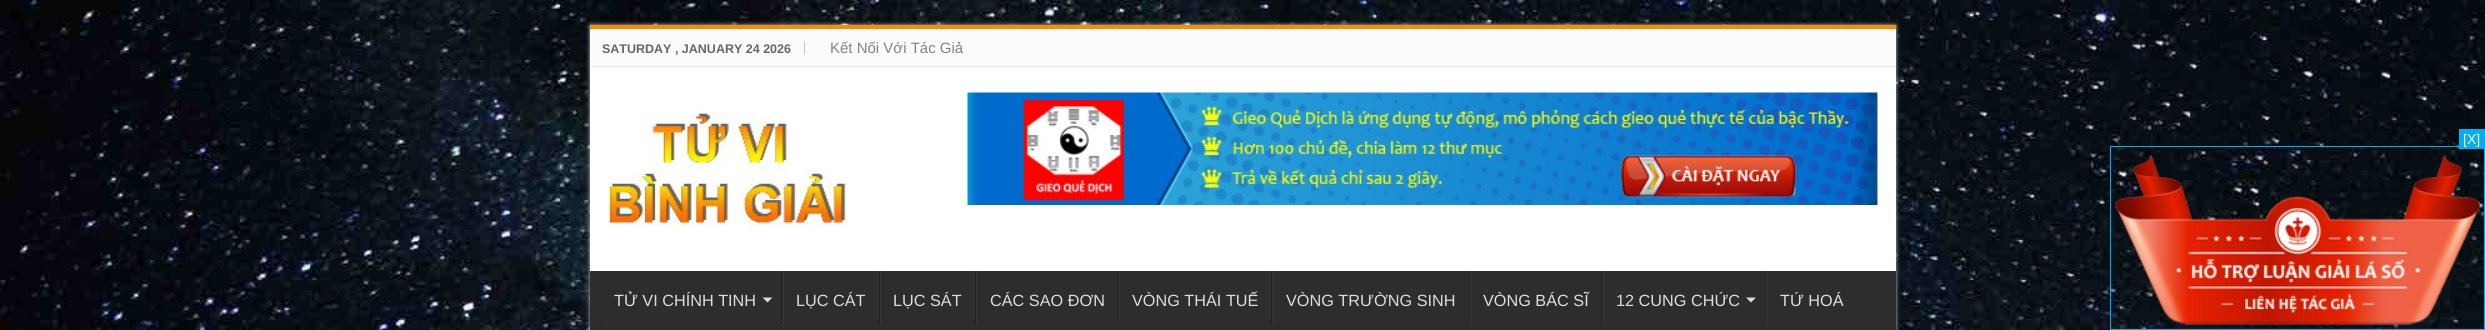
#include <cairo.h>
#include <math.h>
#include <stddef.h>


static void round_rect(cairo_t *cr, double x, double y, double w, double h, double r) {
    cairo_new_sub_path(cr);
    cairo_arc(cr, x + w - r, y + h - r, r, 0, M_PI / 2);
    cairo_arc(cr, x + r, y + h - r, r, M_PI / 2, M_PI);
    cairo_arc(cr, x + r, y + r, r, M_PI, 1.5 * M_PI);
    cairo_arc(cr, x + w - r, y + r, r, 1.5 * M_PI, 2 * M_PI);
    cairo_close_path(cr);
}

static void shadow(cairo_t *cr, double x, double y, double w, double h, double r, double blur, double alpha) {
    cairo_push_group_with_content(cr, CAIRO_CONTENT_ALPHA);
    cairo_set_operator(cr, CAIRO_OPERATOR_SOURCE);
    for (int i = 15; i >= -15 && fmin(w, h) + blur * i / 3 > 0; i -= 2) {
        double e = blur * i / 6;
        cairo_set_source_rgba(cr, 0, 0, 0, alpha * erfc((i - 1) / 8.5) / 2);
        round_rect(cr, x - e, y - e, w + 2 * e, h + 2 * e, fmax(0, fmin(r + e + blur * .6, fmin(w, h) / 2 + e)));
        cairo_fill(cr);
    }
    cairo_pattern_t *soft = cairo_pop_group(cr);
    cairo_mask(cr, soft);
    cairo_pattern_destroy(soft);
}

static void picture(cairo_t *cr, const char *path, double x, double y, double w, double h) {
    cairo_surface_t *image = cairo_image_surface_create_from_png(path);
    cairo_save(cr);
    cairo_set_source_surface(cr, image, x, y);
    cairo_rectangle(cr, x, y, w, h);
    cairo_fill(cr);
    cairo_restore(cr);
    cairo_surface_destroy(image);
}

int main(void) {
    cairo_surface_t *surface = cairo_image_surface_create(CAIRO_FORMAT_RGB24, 2485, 330);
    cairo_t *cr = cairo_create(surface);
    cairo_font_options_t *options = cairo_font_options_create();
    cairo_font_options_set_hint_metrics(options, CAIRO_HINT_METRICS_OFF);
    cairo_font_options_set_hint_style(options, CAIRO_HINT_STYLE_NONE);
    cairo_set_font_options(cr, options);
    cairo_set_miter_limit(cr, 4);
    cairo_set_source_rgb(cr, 1, 1, 1);
    cairo_paint(cr);
    picture(cr, "img1.png", 0, 0, 2485, 330);
    cairo_set_source_rgb(cr, 0.792, 0.792, 0.792);
    shadow(cr, 590, 25, 1306, 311, 0, 2, 1);
    cairo_set_source_rgb(cr, 1, 1, 1);
    cairo_rectangle(cr, 590, 68, 1306, 203);
    cairo_fill(cr);
    cairo_set_source_rgb(cr, 0.973, 0.549, 0);
    cairo_rectangle(cr, 590, 25, 1306, 4);
    cairo_fill(cr);
    cairo_set_source_rgb(cr, 0.984, 0.984, 0.984);
    cairo_rectangle(cr, 590, 29, 1306, 39);
    cairo_fill(cr);
    cairo_set_source_rgb(cr, 0.925, 0.925, 0.925);
    cairo_rectangle(cr, 590, 66, 1306, 1);
    cairo_fill(cr);
    cairo_set_source_rgb(cr, 0.8, 0.8, 0.8);
    cairo_rectangle(cr, 804, 41, 1, 14);
    cairo_fill(cr);
    cairo_select_font_face(cr, "Liberation Sans", CAIRO_FONT_SLANT_NORMAL, CAIRO_FONT_WEIGHT_BOLD);
    cairo_set_font_size(cr, 12.5);
    cairo_set_source_rgb(cr, 0.4, 0.4, 0.4);
    cairo_move_to(cr, 602, 53);
    cairo_show_text(cr, "SATURDAY , JANUARY 24 2026");
    cairo_select_font_face(cr, "Liberation Sans", CAIRO_FONT_SLANT_NORMAL, CAIRO_FONT_WEIGHT_NORMAL);
    cairo_set_font_size(cr, 15);
    cairo_set_source_rgb(cr, 0.514, 0.514, 0.514);
    cairo_move_to(cr, 830, 53);
    cairo_show_text(cr, "Kết Nối Với Tác Giả");
    picture(cr, "img2.png", 608, 111, 240, 117);
    picture(cr, "img3.png", 967, 92, 911, 113);
    cairo_set_source_rgb(cr, 0.176, 0.176, 0.176);
    cairo_rectangle(cr, 590, 271, 1306, 59);
    cairo_fill(cr);
    cairo_set_font_size(cr, 16.25);
    cairo_set_source_rgb(cr, 0.867, 0.867, 0.867);
    cairo_move_to(cr, 614, 306);
    cairo_show_text(cr, "TỬ VI CHÍNH TINH");
    cairo_new_path(cr);
    cairo_move_to(cr, 762.5, 297.5);
    cairo_line_to(cr, 772.5, 297.5);
    cairo_line_to(cr, 767.5, 302.5);
    cairo_close_path(cr);
    cairo_fill(cr);
    cairo_set_source_rgb(cr, 0.133, 0.133, 0.133);
    cairo_rectangle(cr, 781, 271, 1, 53);
    cairo_fill(cr);
    cairo_set_source_rgb(cr, 0.22, 0.22, 0.22);
    cairo_rectangle(cr, 783, 271, 1, 53);
    cairo_fill(cr);
    cairo_set_source_rgb(cr, 0.867, 0.867, 0.867);
    cairo_move_to(cr, 796, 306);
    cairo_show_text(cr, "LỤC CÁT");
    cairo_set_source_rgb(cr, 0.133, 0.133, 0.133);
    cairo_rectangle(cr, 879, 271, 1, 53);
    cairo_fill(cr);
    cairo_set_source_rgb(cr, 0.22, 0.22, 0.22);
    cairo_rectangle(cr, 880, 271, 1, 53);
    cairo_fill(cr);
    cairo_set_source_rgb(cr, 0.867, 0.867, 0.867);
    cairo_move_to(cr, 893, 306);
    cairo_show_text(cr, "LỤC SÁT");
    cairo_set_source_rgb(cr, 0.133, 0.133, 0.133);
    cairo_rectangle(cr, 975, 271, 1, 53);
    cairo_fill(cr);
    cairo_set_source_rgb(cr, 0.22, 0.22, 0.22);
    cairo_rectangle(cr, 976, 271, 1, 53);
    cairo_fill(cr);
    cairo_set_source_rgb(cr, 0.867, 0.867, 0.867);
    cairo_move_to(cr, 990, 306);
    cairo_show_text(cr, "CÁC SAO ĐƠN");
    cairo_set_source_rgb(cr, 0.133, 0.133, 0.133);
    cairo_rectangle(cr, 1118, 271, 1, 53);
    cairo_fill(cr);
    cairo_set_source_rgb(cr, 0.22, 0.22, 0.22);
    cairo_rectangle(cr, 1119, 271, 1, 53);
    cairo_fill(cr);
    cairo_set_source_rgb(cr, 0.867, 0.867, 0.867);
    cairo_move_to(cr, 1132, 306);
    cairo_show_text(cr, "VÒNG THÁI TUẾ");
    cairo_set_source_rgb(cr, 0.133, 0.133, 0.133);
    cairo_rectangle(cr, 1271, 271, 1, 53);
    cairo_fill(cr);
    cairo_set_source_rgb(cr, 0.22, 0.22, 0.22);
    cairo_rectangle(cr, 1273, 271, 1, 53);
    cairo_fill(cr);
    cairo_set_source_rgb(cr, 0.867, 0.867, 0.867);
    cairo_move_to(cr, 1286, 306);
    cairo_show_text(cr, "VÒNG TRƯỜNG SINH");
    cairo_set_source_rgb(cr, 0.133, 0.133, 0.133);
    cairo_rectangle(cr, 1469, 271, 1, 53);
    cairo_fill(cr);
    cairo_set_source_rgb(cr, 0.22, 0.22, 0.22);
    cairo_rectangle(cr, 1470, 271, 1, 53);
    cairo_fill(cr);
    cairo_set_source_rgb(cr, 0.867, 0.867, 0.867);
    cairo_move_to(cr, 1483, 306);
    cairo_show_text(cr, "VÒNG BÁC SĨ");
    cairo_set_source_rgb(cr, 0.133, 0.133, 0.133);
    cairo_rectangle(cr, 1601, 271, 1, 53);
    cairo_fill(cr);
    cairo_set_source_rgb(cr, 0.22, 0.22, 0.22);
    cairo_rectangle(cr, 1603, 271, 1, 53);
    cairo_fill(cr);
    cairo_set_source_rgb(cr, 0.867, 0.867, 0.867);
    cairo_move_to(cr, 1616, 306);
    cairo_show_text(cr, "12 CUNG CHỨC");
    cairo_new_path(cr);
    cairo_move_to(cr, 1746, 297.5);
    cairo_line_to(cr, 1756, 297.5);
    cairo_line_to(cr, 1751, 302.5);
    cairo_close_path(cr);
    cairo_fill(cr);
    cairo_set_source_rgb(cr, 0.133, 0.133, 0.133);
    cairo_rectangle(cr, 1765, 271, 1, 53);
    cairo_fill(cr);
    cairo_set_source_rgb(cr, 0.22, 0.22, 0.22);
    cairo_rectangle(cr, 1766, 271, 1, 53);
    cairo_fill(cr);
    cairo_set_source_rgb(cr, 0.867, 0.867, 0.867);
    cairo_move_to(cr, 1780, 306);
    cairo_show_text(cr, "TỨ HOÁ");
    cairo_set_source_rgb(cr, 0.133, 0.133, 0.133);
    cairo_rectangle(cr, 603, 324, 1, 6);
    cairo_fill(cr);
    cairo_set_source_rgb(cr, 0.22, 0.22, 0.22);
    cairo_rectangle(cr, 604, 324, 1, 6);
    cairo_fill(cr);
    cairo_rectangle(cr, 2110.5, 146.5, 374, 183);
    cairo_set_source_rgb(cr, 0.004, 0.682, 0.941);
    cairo_set_line_width(cr, 1);
    cairo_stroke(cr);
    cairo_rectangle(cr, 2459, 129, 26, 20);
    cairo_fill(cr);
    cairo_set_font_size(cr, 14);
    cairo_set_source_rgb(cr, 1, 1, 1);
    cairo_move_to(cr, 2463, 144);
    cairo_show_text(cr, "[X]");
    picture(cr, "img4.png", 2114, 154, 367, 172);
    cairo_surface_write_to_png(surface, "page.png");
    cairo_font_options_destroy(options);
    cairo_destroy(cr);
    cairo_surface_destroy(surface);
    return 0;
}
